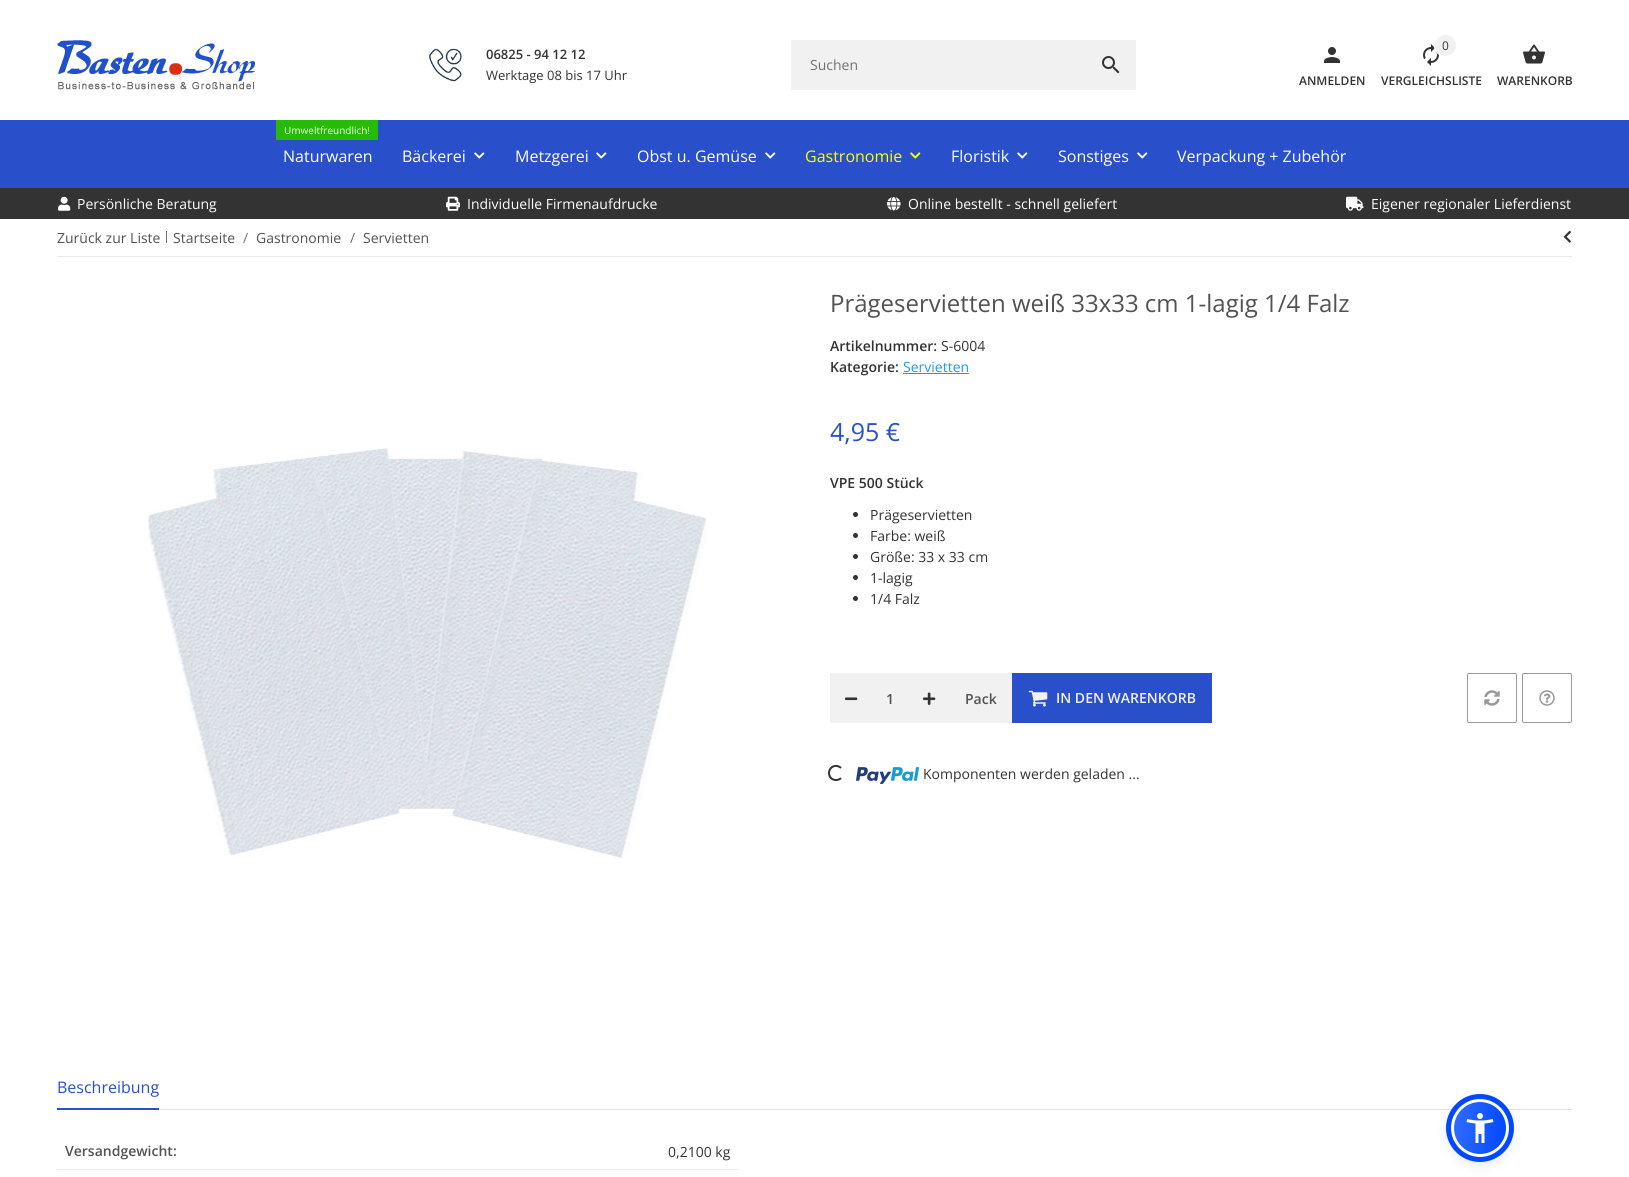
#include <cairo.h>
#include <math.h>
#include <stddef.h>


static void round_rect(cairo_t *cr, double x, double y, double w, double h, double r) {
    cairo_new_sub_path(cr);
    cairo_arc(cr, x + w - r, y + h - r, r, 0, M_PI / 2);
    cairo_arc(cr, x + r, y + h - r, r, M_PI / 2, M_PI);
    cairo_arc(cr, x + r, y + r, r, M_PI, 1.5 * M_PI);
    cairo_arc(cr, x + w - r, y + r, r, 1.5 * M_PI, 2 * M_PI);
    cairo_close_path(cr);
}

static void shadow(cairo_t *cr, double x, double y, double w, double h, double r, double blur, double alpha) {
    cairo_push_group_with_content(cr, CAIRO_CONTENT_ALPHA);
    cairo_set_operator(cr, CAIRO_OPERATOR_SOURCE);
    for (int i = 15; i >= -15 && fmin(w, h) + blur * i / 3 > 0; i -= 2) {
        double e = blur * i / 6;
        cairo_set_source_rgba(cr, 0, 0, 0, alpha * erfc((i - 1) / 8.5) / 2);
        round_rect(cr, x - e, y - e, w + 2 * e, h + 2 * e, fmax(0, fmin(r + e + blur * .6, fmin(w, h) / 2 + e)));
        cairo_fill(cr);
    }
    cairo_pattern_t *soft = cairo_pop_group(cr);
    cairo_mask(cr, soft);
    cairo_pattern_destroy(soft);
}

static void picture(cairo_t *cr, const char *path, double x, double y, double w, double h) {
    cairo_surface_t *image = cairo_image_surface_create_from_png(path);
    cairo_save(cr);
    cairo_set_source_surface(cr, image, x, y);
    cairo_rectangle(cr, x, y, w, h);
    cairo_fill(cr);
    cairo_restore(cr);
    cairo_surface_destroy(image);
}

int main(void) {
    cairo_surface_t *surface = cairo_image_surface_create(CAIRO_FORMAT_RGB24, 1629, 1177);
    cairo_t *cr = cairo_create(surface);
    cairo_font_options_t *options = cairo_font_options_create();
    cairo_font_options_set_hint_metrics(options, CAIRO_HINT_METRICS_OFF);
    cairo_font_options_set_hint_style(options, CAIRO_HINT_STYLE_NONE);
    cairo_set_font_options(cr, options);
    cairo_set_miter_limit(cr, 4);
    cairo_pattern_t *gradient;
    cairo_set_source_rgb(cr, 1, 1, 1);
    cairo_paint(cr);
    picture(cr, "img1.png", 57, 40, 198, 50);
    picture(cr, "img2.png", 428, 48, 34, 34);
    cairo_select_font_face(cr, "Open Sans SemiBold", CAIRO_FONT_SLANT_NORMAL, CAIRO_FONT_WEIGHT_NORMAL);
    cairo_set_font_size(cr, 13);
    cairo_set_source_rgb(cr, 0.2, 0.2, 0.2);
    cairo_move_to(cr, 486, 59);
    cairo_show_text(cr, "06825 - 94 12 12");
    cairo_select_font_face(cr, "Open Sans", CAIRO_FONT_SLANT_NORMAL, CAIRO_FONT_WEIGHT_NORMAL);
    cairo_move_to(cr, 486, 80);
    cairo_show_text(cr, "Werktage 08 bis 17 Uhr");
    cairo_set_source_rgb(cr, 0.945, 0.945, 0.945);
    cairo_rectangle(cr, 791, 40, 345, 50);
    cairo_fill(cr);
    cairo_set_font_size(cr, 14);
    cairo_set_source_rgb(cr, 0.439, 0.439, 0.439);
    cairo_move_to(cr, 810, 70);
    cairo_show_text(cr, "Suchen");
    picture(cr, "img3.png", 1102, 56, 18, 18);
    picture(cr, "img4.png", 1324, 47, 16, 16);
    cairo_select_font_face(cr, "Open Sans SemiBold", CAIRO_FONT_SLANT_NORMAL, CAIRO_FONT_WEIGHT_NORMAL);
    cairo_set_font_size(cr, 12);
    cairo_set_source_rgb(cr, 0.2, 0.2, 0.2);
    cairo_move_to(cr, 1299, 85);
    cairo_show_text(cr, "ANMELDEN");
    picture(cr, "img5.png", 1423, 44, 16, 22);
    cairo_set_source_rgb(cr, 0.945, 0.945, 0.945);
    cairo_arc(cr, 1445.5, 45.5, 11, 0, 2 * M_PI);
    cairo_fill_preserve(cr);
    cairo_set_source_rgb(cr, 1, 1, 1);
    cairo_set_line_width(cr, 1);
    cairo_stroke(cr);
    cairo_select_font_face(cr, "Open Sans", CAIRO_FONT_SLANT_NORMAL, CAIRO_FONT_WEIGHT_NORMAL);
    cairo_set_source_rgb(cr, 0.2, 0.2, 0.2);
    cairo_move_to(cr, 1442, 50);
    cairo_show_text(cr, "0");
    cairo_select_font_face(cr, "Open Sans SemiBold", CAIRO_FONT_SLANT_NORMAL, CAIRO_FONT_WEIGHT_NORMAL);
    cairo_move_to(cr, 1381, 85);
    cairo_show_text(cr, "VERGLEICHSLISTE");
    picture(cr, "img6.png", 1523, 44, 22, 20);
    cairo_move_to(cr, 1497, 85);
    cairo_show_text(cr, "WARENKORB");
    cairo_set_source_rgb(cr, 0.161, 0.314, 0.792);
    cairo_rectangle(cr, 0, 120, 1629, 68);
    cairo_fill(cr);
    cairo_set_source_rgb(cr, 0.145, 0.733, 0.027);
    cairo_rectangle(cr, 276, 120, 102, 20);
    cairo_fill(cr);
    cairo_select_font_face(cr, "Open Sans", CAIRO_FONT_SLANT_NORMAL, CAIRO_FONT_WEIGHT_NORMAL);
    cairo_set_font_size(cr, 10);
    cairo_set_source_rgb(cr, 1, 1, 1);
    cairo_move_to(cr, 284, 134);
    cairo_show_text(cr, "Umweltfreundlich!");
    cairo_set_font_size(cr, 16);
    cairo_move_to(cr, 283, 162);
    cairo_show_text(cr, "Naturwaren");
    cairo_move_to(cr, 402, 162);
    cairo_show_text(cr, "Bäckerei");
    picture(cr, "img7.png", 474, 152, 11, 7);
    cairo_move_to(cr, 515, 162);
    cairo_show_text(cr, "Metzgerei");
    picture(cr, "img7.png", 596, 152, 11, 7);
    cairo_move_to(cr, 637, 162);
    cairo_show_text(cr, "Obst u. Gemüse");
    picture(cr, "img7.png", 765, 152, 11, 7);
    cairo_set_source_rgb(cr, 1, 1, 0);
    cairo_move_to(cr, 805, 162);
    cairo_show_text(cr, "Gastronomie");
    picture(cr, "img8.png", 910, 152, 11, 7);
    cairo_set_source_rgb(cr, 1, 1, 1);
    cairo_move_to(cr, 951, 162);
    cairo_show_text(cr, "Floristik");
    picture(cr, "img7.png", 1017, 152, 11, 7);
    cairo_move_to(cr, 1058, 162);
    cairo_show_text(cr, "Sonstiges");
    picture(cr, "img7.png", 1137, 152, 11, 7);
    cairo_move_to(cr, 1177, 162);
    cairo_show_text(cr, "Verpackung + Zubehör");
    cairo_set_source_rgb(cr, 0.2, 0.2, 0.2);
    cairo_rectangle(cr, 0, 188, 1629, 31);
    cairo_fill(cr);
    picture(cr, "img9.png", 58, 196, 13, 15);
    cairo_set_font_size(cr, 14);
    cairo_set_source_rgb(cr, 1, 1, 1);
    cairo_move_to(cr, 77, 209);
    cairo_show_text(cr, "Persönliche Beratung");
    picture(cr, "img10.png", 446, 196, 14, 15);
    cairo_move_to(cr, 467, 209);
    cairo_show_text(cr, "Individuelle Firmenaufdrucke");
    picture(cr, "img11.png", 887, 197, 14, 14);
    cairo_move_to(cr, 908, 209);
    cairo_show_text(cr, "Online bestellt - schnell geliefert");
    picture(cr, "img12.png", 1346, 196, 18, 15);
    cairo_move_to(cr, 1371, 209);
    cairo_show_text(cr, "Eigener regionaler Lieferdienst");
    cairo_set_source_rgb(cr, 0.322, 0.322, 0.322);
    cairo_move_to(cr, 57, 243);
    cairo_show_text(cr, "Zurück zur Liste");
    cairo_set_source_rgb(cr, 0.439, 0.439, 0.439);
    cairo_rectangle(cr, 166, 231, 1, 12);
    cairo_fill(cr);
    cairo_set_source_rgb(cr, 0.322, 0.322, 0.322);
    cairo_move_to(cr, 173, 243);
    cairo_show_text(cr, "Startseite");
    cairo_set_source_rgb(cr, 0.439, 0.439, 0.439);
    cairo_move_to(cr, 243, 243);
    cairo_show_text(cr, "/");
    cairo_set_source_rgb(cr, 0.322, 0.322, 0.322);
    cairo_move_to(cr, 256, 243);
    cairo_show_text(cr, "Gastronomie");
    cairo_set_source_rgb(cr, 0.439, 0.439, 0.439);
    cairo_move_to(cr, 350, 243);
    cairo_show_text(cr, "/");
    cairo_set_source_rgb(cr, 0.322, 0.322, 0.322);
    cairo_move_to(cr, 363, 243);
    cairo_show_text(cr, "Servietten");
    picture(cr, "img13.png", 1563, 230, 8, 13);
    cairo_set_source_rgb(cr, 0.914, 0.914, 0.914);
    cairo_rectangle(cr, 57, 256, 1515, 1);
    cairo_fill(cr);
    picture(cr, "img14.png", 148, 448, 559, 410);
    cairo_set_font_size(cr, 24);
    cairo_set_source_rgb(cr, 0.322, 0.322, 0.322);
    cairo_move_to(cr, 830, 312);
    cairo_show_text(cr, "Prägeservietten weiß 33x33 cm 1-lagig 1/4 Falz");
    cairo_select_font_face(cr, "Open Sans SemiBold", CAIRO_FONT_SLANT_NORMAL, CAIRO_FONT_WEIGHT_NORMAL);
    cairo_set_font_size(cr, 14);
    cairo_set_source_rgb(cr, 0.2, 0.2, 0.2);
    cairo_move_to(cr, 830, 351);
    cairo_show_text(cr, "Artikelnummer:");
    cairo_select_font_face(cr, "Open Sans", CAIRO_FONT_SLANT_NORMAL, CAIRO_FONT_WEIGHT_NORMAL);
    cairo_move_to(cr, 941, 351);
    cairo_show_text(cr, "S-6004");
    cairo_select_font_face(cr, "Open Sans SemiBold", CAIRO_FONT_SLANT_NORMAL, CAIRO_FONT_WEIGHT_NORMAL);
    cairo_move_to(cr, 830, 372);
    cairo_show_text(cr, "Kategorie:");
    cairo_select_font_face(cr, "Open Sans", CAIRO_FONT_SLANT_NORMAL, CAIRO_FONT_WEIGHT_NORMAL);
    cairo_set_source_rgb(cr, 0.129, 0.588, 0.953);
    cairo_move_to(cr, 903, 372);
    cairo_show_text(cr, "Servietten");
    cairo_rectangle(cr, 903, 373, 66, 1);
    cairo_fill(cr);
    cairo_set_font_size(cr, 25);
    cairo_set_source_rgb(cr, 0.161, 0.314, 0.792);
    cairo_move_to(cr, 830, 441);
    cairo_show_text(cr, "4,95 €");
    cairo_select_font_face(cr, "Open Sans SemiBold", CAIRO_FONT_SLANT_NORMAL, CAIRO_FONT_WEIGHT_NORMAL);
    cairo_set_font_size(cr, 14);
    cairo_set_source_rgb(cr, 0.2, 0.2, 0.2);
    cairo_move_to(cr, 830, 488);
    cairo_show_text(cr, "VPE 500 Stück");
    cairo_new_path(cr);
    cairo_arc(cr, 855.5, 514.5, 2.5, 0, 2 * M_PI);
    cairo_fill(cr);
    cairo_select_font_face(cr, "Open Sans", CAIRO_FONT_SLANT_NORMAL, CAIRO_FONT_WEIGHT_NORMAL);
    cairo_move_to(cr, 870, 520);
    cairo_show_text(cr, "Prägeservietten");
    cairo_new_path(cr);
    cairo_arc(cr, 855.5, 535.5, 2.5, 0, 2 * M_PI);
    cairo_fill(cr);
    cairo_move_to(cr, 870, 541);
    cairo_show_text(cr, "Farbe: weiß");
    cairo_new_path(cr);
    cairo_arc(cr, 855.5, 556.5, 2.5, 0, 2 * M_PI);
    cairo_fill(cr);
    cairo_move_to(cr, 870, 562);
    cairo_show_text(cr, "Größe: 33 x 33 cm");
    cairo_new_path(cr);
    cairo_arc(cr, 855.5, 577.5, 2.5, 0, 2 * M_PI);
    cairo_fill(cr);
    cairo_move_to(cr, 870, 583);
    cairo_show_text(cr, "1-lagig");
    cairo_new_path(cr);
    cairo_arc(cr, 855.5, 598.5, 2.5, 0, 2 * M_PI);
    cairo_fill(cr);
    cairo_move_to(cr, 870, 604);
    cairo_show_text(cr, "1/4 Falz");
    cairo_set_source_rgb(cr, 0.945, 0.945, 0.945);
    cairo_rectangle(cr, 830, 673, 182, 50);
    cairo_fill(cr);
    picture(cr, "img15.png", 845, 697, 13, 4);
    cairo_select_font_face(cr, "Open Sans SemiBold", CAIRO_FONT_SLANT_NORMAL, CAIRO_FONT_WEIGHT_NORMAL);
    cairo_set_source_rgb(cr, 0.322, 0.322, 0.322);
    cairo_move_to(cr, 886, 704);
    cairo_show_text(cr, "1");
    picture(cr, "img16.png", 923, 692, 13, 13);
    cairo_move_to(cr, 965, 704);
    cairo_show_text(cr, "Pack");
    cairo_set_source_rgb(cr, 0.161, 0.314, 0.792);
    cairo_rectangle(cr, 1012, 673, 200, 50);
    cairo_fill(cr);
    picture(cr, "img17.png", 1028, 690, 20, 17);
    cairo_set_source_rgb(cr, 0.945, 0.945, 0.945);
    cairo_move_to(cr, 1056, 703);
    cairo_show_text(cr, "IN DEN WARENKORB");
    round_rect(cr, 1467.5, 673.5, 49, 49, 1.5);
    cairo_set_source_rgb(cr, 0.6, 0.6, 0.6);
    cairo_stroke(cr);
    picture(cr, "img18.png", 1484, 690, 16, 16);
    round_rect(cr, 1522.5, 673.5, 49, 49, 1.5);
    cairo_stroke(cr);
    picture(cr, "img19.png", 1539, 690, 16, 16);
    cairo_new_path(cr);
    cairo_move_to(cr, 841, 778);
    cairo_curve_to(cr, 839.5, 779.5, 838, 780, 836, 780);
    cairo_curve_to(cr, 827.5, 780, 826.5, 768, 834.5, 766);
    cairo_curve_to(cr, 837, 765.5, 839.5, 766.5, 841, 768);
    cairo_set_source_rgb(cr, 0.2, 0.2, 0.2);
    cairo_set_line_width(cr, 2);
    cairo_stroke(cr);
    picture(cr, "img20.png", 856, 767, 63, 17);
    cairo_select_font_face(cr, "Open Sans", CAIRO_FONT_SLANT_NORMAL, CAIRO_FONT_WEIGHT_NORMAL);
    cairo_move_to(cr, 923, 779);
    cairo_show_text(cr, "Komponenten werden geladen ...");
    cairo_set_source_rgb(cr, 0.871, 0.886, 0.902);
    cairo_rectangle(cr, 159, 1109, 1413, 1);
    cairo_fill(cr);
    cairo_set_font_size(cr, 16);
    cairo_set_source_rgb(cr, 0.161, 0.314, 0.792);
    cairo_move_to(cr, 57, 1093);
    cairo_show_text(cr, "Beschreibung");
    cairo_rectangle(cr, 57, 1108, 102, 2);
    cairo_fill(cr);
    cairo_set_source_rgb(cr, 0.933, 0.933, 0.933);
    cairo_rectangle(cr, 57, 1169, 682, 1);
    cairo_fill(cr);
    cairo_select_font_face(cr, "Open Sans SemiBold", CAIRO_FONT_SLANT_NORMAL, CAIRO_FONT_WEIGHT_NORMAL);
    cairo_set_font_size(cr, 14);
    cairo_set_source_rgb(cr, 0.322, 0.322, 0.322);
    cairo_move_to(cr, 65, 1156);
    cairo_show_text(cr, "Versandgewicht:");
    cairo_select_font_face(cr, "Open Sans", CAIRO_FONT_SLANT_NORMAL, CAIRO_FONT_WEIGHT_NORMAL);
    cairo_set_source_rgb(cr, 0.2, 0.2, 0.2);
    cairo_move_to(cr, 668, 1157);
    cairo_show_text(cr, "0,2100 kg");
    cairo_set_source_rgb(cr, 0.365, 0.392, 0.58);
    shadow(cr, 1451, 1101, 58, 58, 29, 2, 0.2);
    cairo_set_source_rgb(cr, 0.145, 0.173, 0.38);
    shadow(cr, 1451, 1104, 58, 58, 29, 7.5, 0.15);
    cairo_save(cr);
    round_rect(cr, 1451, 1099, 58, 58, 29);
    cairo_clip(cr);
    gradient = cairo_pattern_create_linear(1452, 1125, 1508, 1131);
    cairo_pattern_add_color_stop_rgba(gradient, 0, 0.196, 0.424, 1, 1);
    cairo_pattern_add_color_stop_rgba(gradient, 1, 0, 0.282, 1, 1);
    cairo_set_source(cr, gradient);
    cairo_pattern_destroy(gradient);
    cairo_rectangle(cr, 1454, 1102, 52, 52);
    cairo_fill(cr);
    cairo_restore(cr);
    cairo_arc(cr, 1480, 1128, 27.5, 0, 2 * M_PI);
    cairo_set_source_rgb(cr, 1, 1, 1);
    cairo_set_line_width(cr, 3);
    cairo_stroke(cr);
    cairo_arc(cr, 1480, 1128, 31.5, 0, 2 * M_PI);
    cairo_set_source_rgb(cr, 0, 0.282, 1);
    cairo_set_line_width(cr, 5);
    cairo_stroke(cr);
    picture(cr, "img21.png", 1466, 1113, 28, 30);
    cairo_surface_write_to_png(surface, "page.png");
    cairo_font_options_destroy(options);
    cairo_destroy(cr);
    cairo_surface_destroy(surface);
    return 0;
}
